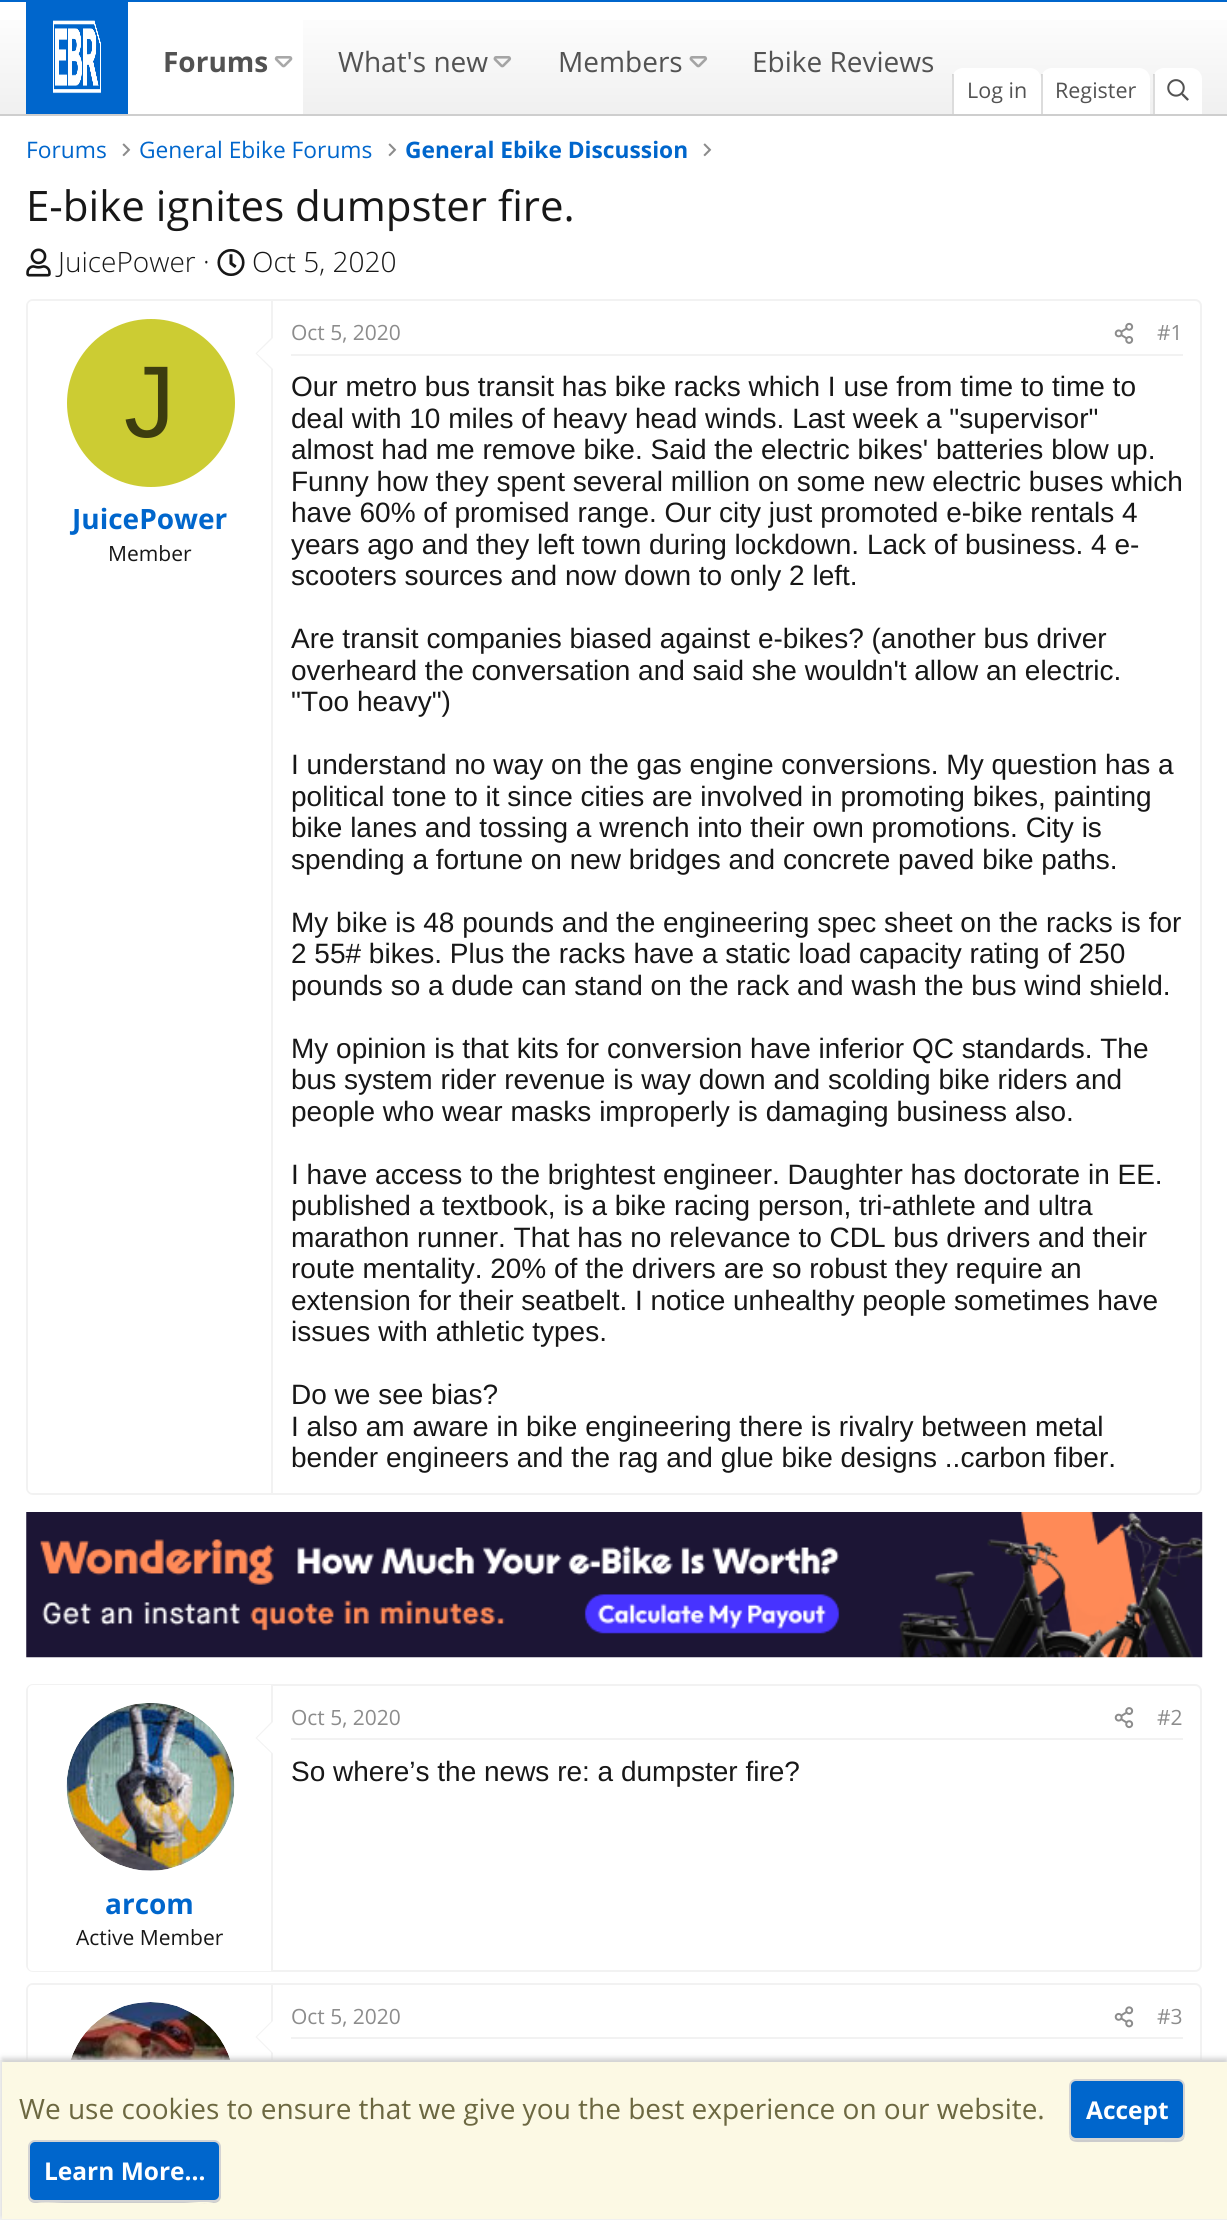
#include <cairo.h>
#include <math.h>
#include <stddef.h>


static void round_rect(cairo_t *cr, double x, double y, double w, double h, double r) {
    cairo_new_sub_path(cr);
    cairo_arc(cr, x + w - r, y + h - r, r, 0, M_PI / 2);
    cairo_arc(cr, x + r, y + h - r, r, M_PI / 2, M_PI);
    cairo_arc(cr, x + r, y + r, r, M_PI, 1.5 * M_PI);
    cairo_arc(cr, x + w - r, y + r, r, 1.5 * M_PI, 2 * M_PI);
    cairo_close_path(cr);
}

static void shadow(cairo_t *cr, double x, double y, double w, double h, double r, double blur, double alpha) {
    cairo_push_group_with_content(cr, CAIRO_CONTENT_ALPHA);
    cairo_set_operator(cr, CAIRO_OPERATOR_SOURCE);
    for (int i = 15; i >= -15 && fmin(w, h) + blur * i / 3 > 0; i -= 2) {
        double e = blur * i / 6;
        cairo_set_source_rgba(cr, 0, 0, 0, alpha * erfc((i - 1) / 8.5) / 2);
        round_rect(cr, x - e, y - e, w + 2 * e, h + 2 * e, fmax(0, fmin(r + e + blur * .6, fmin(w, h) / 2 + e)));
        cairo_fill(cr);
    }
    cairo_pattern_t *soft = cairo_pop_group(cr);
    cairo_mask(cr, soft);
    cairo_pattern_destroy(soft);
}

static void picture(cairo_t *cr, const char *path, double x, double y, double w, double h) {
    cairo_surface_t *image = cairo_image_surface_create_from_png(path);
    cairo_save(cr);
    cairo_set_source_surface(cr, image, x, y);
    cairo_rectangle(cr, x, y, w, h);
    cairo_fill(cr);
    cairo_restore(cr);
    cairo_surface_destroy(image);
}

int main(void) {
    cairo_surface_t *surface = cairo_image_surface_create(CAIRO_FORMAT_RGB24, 1227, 2220);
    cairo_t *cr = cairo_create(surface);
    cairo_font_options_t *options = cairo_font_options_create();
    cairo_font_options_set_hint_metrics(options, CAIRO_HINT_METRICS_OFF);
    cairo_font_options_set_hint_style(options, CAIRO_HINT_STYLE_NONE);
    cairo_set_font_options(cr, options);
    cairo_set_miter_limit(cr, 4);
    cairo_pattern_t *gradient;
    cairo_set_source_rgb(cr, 1, 1, 1);
    cairo_paint(cr);
    gradient = cairo_pattern_create_linear(614, 1.7, 614, 114);
    cairo_pattern_add_color_stop_rgba(gradient, 0, 1, 1, 1, 1);
    cairo_pattern_add_color_stop_rgba(gradient, 1, 0.941, 0.941, 0.941, 1);
    cairo_set_source(cr, gradient);
    cairo_pattern_destroy(gradient);
    cairo_rectangle(cr, 0, 20, 1227, 94);
    cairo_fill(cr);
    cairo_set_source_rgb(cr, 0, 0.4, 0.8);
    cairo_rectangle(cr, 0, 0, 1227, 2);
    cairo_fill(cr);
    cairo_set_source_rgb(cr, 0.808, 0.808, 0.808);
    cairo_rectangle(cr, 0, 114, 1227, 2);
    cairo_fill(cr);
    cairo_set_source_rgb(cr, 0, 0.4, 0.8);
    cairo_rectangle(cr, 26, 2, 102, 112);
    cairo_fill(cr);
    picture(cr, "img1.png", 53, 20, 48, 74);
    cairo_set_source_rgb(cr, 1, 1, 1);
    cairo_rectangle(cr, 128, 20, 175, 94);
    cairo_fill(cr);
    cairo_select_font_face(cr, "Open Sans", CAIRO_FONT_SLANT_NORMAL, CAIRO_FONT_WEIGHT_BOLD);
    cairo_set_font_size(cr, 28);
    cairo_set_source_rgb(cr, 0.322, 0.322, 0.322);
    cairo_move_to(cr, 163, 72);
    cairo_show_text(cr, "Forums");
    picture(cr, "img2.png", 274, 56, 19, 12);
    cairo_select_font_face(cr, "Open Sans", CAIRO_FONT_SLANT_NORMAL, CAIRO_FONT_WEIGHT_NORMAL);
    cairo_move_to(cr, 338, 72);
    cairo_show_text(cr, "What's new");
    picture(cr, "img3.png", 493, 56, 19, 12);
    cairo_move_to(cr, 558, 72);
    cairo_show_text(cr, "Members");
    picture(cr, "img3.png", 689, 56, 19, 12);
    cairo_move_to(cr, 752, 72);
    cairo_show_text(cr, "Ebike Reviews");
    cairo_set_source_rgb(cr, 1, 1, 1);
    cairo_new_path(cr);
    cairo_move_to(cr, 963, 68);
    cairo_line_to(cr, 1030, 68);
    cairo_curve_to(cr, 1036, 68, 1041, 73, 1041, 79);
    cairo_line_to(cr, 1041, 114);
    cairo_line_to(cr, 952, 114);
    cairo_line_to(cr, 952, 79);
    cairo_curve_to(cr, 952, 73, 957, 68, 963, 68);
    cairo_close_path(cr);
    cairo_fill(cr);
    cairo_set_source_rgba(cr, 0.09, 0.09, 0.09, 0.15);
    cairo_rectangle(cr, 952, 74, 2, 40);
    cairo_fill(cr);
    cairo_set_font_size(cr, 21.5);
    cairo_set_source_rgb(cr, 0.322, 0.322, 0.322);
    cairo_move_to(cr, 967, 98);
    cairo_show_text(cr, "Log in");
    cairo_set_source_rgb(cr, 1, 1, 1);
    cairo_new_path(cr);
    cairo_move_to(cr, 1052, 68);
    cairo_line_to(cr, 1139, 68);
    cairo_curve_to(cr, 1145, 68, 1150, 73, 1150, 79);
    cairo_line_to(cr, 1150, 114);
    cairo_line_to(cr, 1041, 114);
    cairo_line_to(cr, 1041, 79);
    cairo_curve_to(cr, 1041, 73, 1046, 68, 1052, 68);
    cairo_close_path(cr);
    cairo_fill(cr);
    cairo_set_source_rgba(cr, 0.09, 0.09, 0.09, 0.15);
    cairo_rectangle(cr, 1041, 74, 2, 40);
    cairo_fill(cr);
    cairo_set_source_rgb(cr, 0.322, 0.322, 0.322);
    cairo_move_to(cr, 1055, 98);
    cairo_show_text(cr, "Register");
    cairo_set_source_rgb(cr, 1, 1, 1);
    cairo_new_path(cr);
    cairo_move_to(cr, 1164, 68);
    cairo_line_to(cr, 1191, 68);
    cairo_curve_to(cr, 1197, 68, 1202, 73, 1202, 79);
    cairo_line_to(cr, 1202, 114);
    cairo_line_to(cr, 1153, 114);
    cairo_line_to(cr, 1153, 79);
    cairo_curve_to(cr, 1153, 73, 1158, 68, 1164, 68);
    cairo_close_path(cr);
    cairo_fill(cr);
    cairo_set_source_rgba(cr, 0.09, 0.09, 0.09, 0.15);
    cairo_rectangle(cr, 1153, 74, 2, 40);
    cairo_fill(cr);
    picture(cr, "img4.png", 1167, 79, 22, 22);
    cairo_set_font_size(cr, 22.75);
    cairo_set_source_rgb(cr, 0, 0.4, 0.8);
    cairo_move_to(cr, 26, 158);
    cairo_show_text(cr, "Forums");
    picture(cr, "img5.png", 122, 143, 9, 14);
    cairo_move_to(cr, 139, 158);
    cairo_show_text(cr, "General Ebike Forums");
    picture(cr, "img5.png", 388, 143, 9, 14);
    cairo_select_font_face(cr, "Open Sans", CAIRO_FONT_SLANT_NORMAL, CAIRO_FONT_WEIGHT_BOLD);
    cairo_move_to(cr, 405, 158);
    cairo_show_text(cr, "General Ebike Discussion");
    picture(cr, "img5.png", 703, 143, 9, 14);
    cairo_select_font_face(cr, "Open Sans", CAIRO_FONT_SLANT_NORMAL, CAIRO_FONT_WEIGHT_NORMAL);
    cairo_set_font_size(cr, 42);
    cairo_set_source_rgb(cr, 0.09, 0.09, 0.09);
    cairo_move_to(cr, 26, 221);
    cairo_show_text(cr, "E-bike ignites dumpster fire.");
    picture(cr, "img6.png", 26, 248, 25, 29);
    cairo_select_font_face(cr, "Open Sans Light", CAIRO_FONT_SLANT_NORMAL, CAIRO_FONT_WEIGHT_NORMAL);
    cairo_set_font_size(cr, 28);
    cairo_move_to(cr, 58, 272);
    cairo_show_text(cr, "JuicePower ·");
    picture(cr, "img7.png", 217, 249, 28, 27);
    cairo_move_to(cr, 252, 272);
    cairo_show_text(cr, "Oct 5, 2020");
    round_rect(cr, 27, 300, 1174, 1194, 6);
    cairo_set_source_rgb(cr, 0.949, 0.949, 0.949);
    cairo_stroke(cr);
    cairo_set_source_rgb(cr, 1, 1, 1);
    cairo_new_path(cr);
    cairo_move_to(cr, 33, 301);
    cairo_line_to(cr, 273, 301);
    cairo_line_to(cr, 273, 1493);
    cairo_line_to(cr, 33, 1493);
    cairo_curve_to(cr, 30, 1493, 28, 1491, 28, 1488);
    cairo_line_to(cr, 28, 306);
    cairo_curve_to(cr, 28, 303, 30, 301, 33, 301);
    cairo_close_path(cr);
    cairo_fill(cr);
    cairo_set_source_rgb(cr, 0.949, 0.949, 0.949);
    cairo_rectangle(cr, 271, 301, 2, 1192);
    cairo_fill(cr);
    cairo_new_path(cr);
    cairo_move_to(cr, 273, 336);
    cairo_line_to(cr, 273, 371);
    cairo_line_to(cr, 255.5, 353.5);
    cairo_close_path(cr);
    cairo_fill(cr);
    cairo_set_source_rgb(cr, 1, 1, 1);
    cairo_new_path(cr);
    cairo_move_to(cr, 273, 338);
    cairo_line_to(cr, 273, 369);
    cairo_line_to(cr, 257, 353.5);
    cairo_close_path(cr);
    cairo_fill(cr);
    cairo_set_source_rgb(cr, 0.8, 0.8, 0.2);
    cairo_arc(cr, 151, 403, 84, 0, 2 * M_PI);
    cairo_fill(cr);
    cairo_select_font_face(cr, "Liberation Sans", CAIRO_FONT_SLANT_NORMAL, CAIRO_FONT_WEIGHT_NORMAL);
    cairo_set_font_size(cr, 102);
    cairo_set_source_rgb(cr, 0.239, 0.239, 0.059);
    cairo_move_to(cr, 124, 437);
    cairo_show_text(cr, "J");
    cairo_select_font_face(cr, "Open Sans", CAIRO_FONT_SLANT_NORMAL, CAIRO_FONT_WEIGHT_BOLD);
    cairo_set_font_size(cr, 28);
    cairo_set_source_rgb(cr, 0, 0.4, 0.8);
    cairo_move_to(cr, 72, 529);
    cairo_show_text(cr, "JuicePower");
    cairo_select_font_face(cr, "Open Sans", CAIRO_FONT_SLANT_NORMAL, CAIRO_FONT_WEIGHT_NORMAL);
    cairo_set_font_size(cr, 21);
    cairo_set_source_rgb(cr, 0.09, 0.09, 0.09);
    cairo_move_to(cr, 108, 561);
    cairo_show_text(cr, "Member");
    cairo_set_source_rgb(cr, 0.949, 0.949, 0.949);
    cairo_rectangle(cr, 291, 354, 892, 2);
    cairo_fill(cr);
    cairo_set_source_rgb(cr, 0.549, 0.549, 0.549);
    cairo_move_to(cr, 291, 340);
    cairo_show_text(cr, "Oct 5, 2020");
    picture(cr, "img8.png", 1114, 322, 20, 22);
    cairo_move_to(cr, 1157, 340);
    cairo_show_text(cr, "#1");
    cairo_select_font_face(cr, "Liberation Sans", CAIRO_FONT_SLANT_NORMAL, CAIRO_FONT_WEIGHT_NORMAL);
    cairo_set_font_size(cr, 28);
    cairo_set_source_rgb(cr, 0.09, 0.09, 0.09);
    cairo_move_to(cr, 291, 396);
    cairo_show_text(cr, "Our metro bus transit has bike racks which I use from time to time to");
    cairo_move_to(cr, 291, 428);
    cairo_show_text(cr, "deal with 10 miles of heavy head winds. Last week a \"supervisor\"");
    cairo_move_to(cr, 291, 459);
    cairo_show_text(cr, "almost had me remove bike. Said the electric bikes' batteries blow up.");
    cairo_move_to(cr, 291, 491);
    cairo_show_text(cr, "Funny how they spent several million on some new electric buses which");
    cairo_move_to(cr, 291, 522);
    cairo_show_text(cr, "have 60% of promised range. Our city just promoted e-bike rentals 4");
    cairo_move_to(cr, 291, 554);
    cairo_show_text(cr, "years ago and they left town during lockdown. Lack of business. 4 e-");
    cairo_move_to(cr, 291, 585);
    cairo_show_text(cr, "scooters sources and now down to only 2 left.");
    cairo_move_to(cr, 291, 648);
    cairo_show_text(cr, "Are transit companies biased against e-bikes? (another bus driver");
    cairo_move_to(cr, 291, 680);
    cairo_show_text(cr, "overheard the conversation and said she wouldn't allow an electric.");
    cairo_move_to(cr, 291, 711);
    cairo_show_text(cr, "\"Too heavy\")");
    cairo_move_to(cr, 291, 774);
    cairo_show_text(cr, "I understand no way on the gas engine conversions. My question has a");
    cairo_move_to(cr, 291, 806);
    cairo_show_text(cr, "political tone to it since cities are involved in promoting bikes, painting");
    cairo_move_to(cr, 291, 837);
    cairo_show_text(cr, "bike lanes and tossing a wrench into their own promotions. City is");
    cairo_move_to(cr, 291, 869);
    cairo_show_text(cr, "spending a fortune on new bridges and concrete paved bike paths.");
    cairo_move_to(cr, 291, 932);
    cairo_show_text(cr, "My bike is 48 pounds and the engineering spec sheet on the racks is for");
    cairo_move_to(cr, 291, 963);
    cairo_show_text(cr, "2 55# bikes. Plus the racks have a static load capacity rating of 250");
    cairo_move_to(cr, 291, 995);
    cairo_show_text(cr, "pounds so a dude can stand on the rack and wash the bus wind shield.");
    cairo_move_to(cr, 291, 1058);
    cairo_show_text(cr, "My opinion is that kits for conversion have inferior QC standards. The");
    cairo_move_to(cr, 291, 1089);
    cairo_show_text(cr, "bus system rider revenue is way down and scolding bike riders and");
    cairo_move_to(cr, 291, 1121);
    cairo_show_text(cr, "people who wear masks improperly is damaging business also.");
    cairo_move_to(cr, 291, 1184);
    cairo_show_text(cr, "I have access to the brightest engineer. Daughter has doctorate in EE.");
    cairo_move_to(cr, 291, 1215);
    cairo_show_text(cr, "published a textbook, is a bike racing person, tri-athlete and ultra");
    cairo_move_to(cr, 291, 1247);
    cairo_show_text(cr, "marathon runner. That has no relevance to CDL bus drivers and their");
    cairo_move_to(cr, 291, 1278);
    cairo_show_text(cr, "route mentality. 20% of the drivers are so robust they require an");
    cairo_move_to(cr, 291, 1310);
    cairo_show_text(cr, "extension for their seatbelt. I notice unhealthy people sometimes have");
    cairo_move_to(cr, 291, 1341);
    cairo_show_text(cr, "issues with athletic types.");
    cairo_move_to(cr, 291, 1404);
    cairo_show_text(cr, "Do we see bias?");
    cairo_move_to(cr, 291, 1436);
    cairo_show_text(cr, "I also am aware in bike engineering there is rivalry between metal");
    cairo_move_to(cr, 291, 1467);
    cairo_show_text(cr, "bender engineers and the rag and glue bike designs ..carbon fiber.");
    picture(cr, "img9.png", 26, 1512, 1177, 146);
    round_rect(cr, 27, 1685, 1174, 286, 6);
    cairo_set_source_rgb(cr, 0.949, 0.949, 0.949);
    cairo_stroke(cr);
    cairo_rectangle(cr, 291, 1738, 892, 2);
    cairo_fill(cr);
    cairo_select_font_face(cr, "Open Sans", CAIRO_FONT_SLANT_NORMAL, CAIRO_FONT_WEIGHT_NORMAL);
    cairo_set_font_size(cr, 21);
    cairo_set_source_rgb(cr, 0.549, 0.549, 0.549);
    cairo_move_to(cr, 291, 1725);
    cairo_show_text(cr, "Oct 5, 2020");
    picture(cr, "img10.png", 1114, 1707, 20, 22);
    cairo_move_to(cr, 1157, 1725);
    cairo_show_text(cr, "#2");
    cairo_select_font_face(cr, "Liberation Sans", CAIRO_FONT_SLANT_NORMAL, CAIRO_FONT_WEIGHT_NORMAL);
    cairo_set_font_size(cr, 28);
    cairo_set_source_rgb(cr, 0.09, 0.09, 0.09);
    cairo_move_to(cr, 291, 1781);
    cairo_show_text(cr, "So where’s the news re: a dumpster fire?");
    cairo_set_source_rgb(cr, 1, 1, 1);
    cairo_new_path(cr);
    cairo_move_to(cr, 33, 1685);
    cairo_line_to(cr, 273, 1685);
    cairo_line_to(cr, 273, 1971);
    cairo_line_to(cr, 33, 1971);
    cairo_curve_to(cr, 30, 1971, 28, 1969, 28, 1966);
    cairo_line_to(cr, 28, 1690);
    cairo_curve_to(cr, 28, 1687, 30, 1685, 33, 1685);
    cairo_close_path(cr);
    cairo_fill(cr);
    cairo_set_source_rgb(cr, 0.949, 0.949, 0.949);
    cairo_rectangle(cr, 271, 1685, 2, 286);
    cairo_fill(cr);
    picture(cr, "img11.png", 66, 1703, 169, 168);
    cairo_new_path(cr);
    cairo_move_to(cr, 273, 1720);
    cairo_line_to(cr, 273, 1755);
    cairo_line_to(cr, 255.5, 1738);
    cairo_close_path(cr);
    cairo_fill(cr);
    cairo_set_source_rgb(cr, 1, 1, 1);
    cairo_new_path(cr);
    cairo_move_to(cr, 273, 1722);
    cairo_line_to(cr, 273, 1753.5);
    cairo_line_to(cr, 257, 1738);
    cairo_close_path(cr);
    cairo_fill(cr);
    cairo_select_font_face(cr, "Open Sans", CAIRO_FONT_SLANT_NORMAL, CAIRO_FONT_WEIGHT_BOLD);
    cairo_set_source_rgb(cr, 0, 0.4, 0.8);
    cairo_move_to(cr, 105, 1914);
    cairo_show_text(cr, "arcom");
    cairo_select_font_face(cr, "Open Sans", CAIRO_FONT_SLANT_NORMAL, CAIRO_FONT_WEIGHT_NORMAL);
    cairo_set_font_size(cr, 21);
    cairo_set_source_rgb(cr, 0.09, 0.09, 0.09);
    cairo_move_to(cr, 76, 1945);
    cairo_show_text(cr, "Active Member");
    round_rect(cr, 27, 1984, 1174, 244, 6);
    cairo_set_source_rgb(cr, 0.949, 0.949, 0.949);
    cairo_stroke(cr);
    cairo_set_source_rgb(cr, 1, 1, 1);
    cairo_new_path(cr);
    cairo_move_to(cr, 33, 1985);
    cairo_line_to(cr, 273, 1985);
    cairo_line_to(cr, 273, 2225);
    cairo_line_to(cr, 33, 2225);
    cairo_curve_to(cr, 30, 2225, 28, 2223, 28, 2220);
    cairo_line_to(cr, 28, 1990);
    cairo_curve_to(cr, 28, 1987, 30, 1985, 33, 1985);
    cairo_close_path(cr);
    cairo_fill(cr);
    cairo_set_source_rgb(cr, 0.949, 0.949, 0.949);
    cairo_rectangle(cr, 271, 1985, 2, 75);
    cairo_fill(cr);
    picture(cr, "img12.png", 70, 2002, 161, 58);
    cairo_new_path(cr);
    cairo_move_to(cr, 273, 2019.5);
    cairo_line_to(cr, 273, 2054.5);
    cairo_line_to(cr, 255.5, 2037);
    cairo_close_path(cr);
    cairo_fill(cr);
    cairo_set_source_rgb(cr, 1, 1, 1);
    cairo_new_path(cr);
    cairo_move_to(cr, 273, 2021);
    cairo_line_to(cr, 273, 2053);
    cairo_line_to(cr, 257, 2037);
    cairo_close_path(cr);
    cairo_fill(cr);
    cairo_set_source_rgb(cr, 0.949, 0.949, 0.949);
    cairo_rectangle(cr, 291, 2037, 892, 2);
    cairo_fill(cr);
    cairo_set_source_rgb(cr, 0.549, 0.549, 0.549);
    cairo_move_to(cr, 291, 2024);
    cairo_show_text(cr, "Oct 5, 2020");
    picture(cr, "img13.png", 1114, 2006, 20, 22);
    cairo_move_to(cr, 1157, 2024);
    cairo_show_text(cr, "#3");
    cairo_set_source_rgb(cr, 0.988, 0.973, 0.894);
    cairo_rectangle(cr, 1, 2061, 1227, 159);
    cairo_fill_preserve(cr);
    cairo_set_source_rgb(cr, 0.949, 0.949, 0.949);
    cairo_stroke(cr);
    cairo_save(cr);
    cairo_set_fill_rule(cr, CAIRO_FILL_RULE_EVEN_ODD);
    cairo_new_path(cr);
    cairo_move_to(cr, 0, 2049);
    cairo_line_to(cr, 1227, 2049);
    cairo_line_to(cr, 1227, 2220);
    cairo_line_to(cr, 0, 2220);
    cairo_close_path(cr);
    cairo_move_to(cr, 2, 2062);
    cairo_line_to(cr, 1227, 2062);
    cairo_line_to(cr, 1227, 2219);
    cairo_line_to(cr, 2, 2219);
    cairo_close_path(cr);
    cairo_clip(cr);
    cairo_set_source_rgb(cr, 0.827, 0.827, 0.827);
    shadow(cr, 2, 2058, 1225, 158, 0, 2.5, 1);
    cairo_restore(cr);
    cairo_set_font_size(cr, 28);
    cairo_set_source_rgb(cr, 0.424, 0.408, 0.255);
    cairo_move_to(cr, 19, 2119);
    cairo_show_text(cr, "We use cookies to ensure that we give you the best experience on our website.");
    cairo_set_source_rgb(cr, 0.8, 0.8, 0.8);
    cairo_new_path(cr);
    cairo_move_to(cr, 1069, 2086);
    cairo_line_to(cr, 1069, 2119);
    cairo_curve_to(cr, 1069, 2145, 1067, 2142, 1093, 2142);
    cairo_line_to(cr, 1161, 2142);
    cairo_curve_to(cr, 1187, 2142, 1185, 2145, 1185, 2119);
    cairo_line_to(cr, 1185, 2086);
    cairo_line_to(cr, 1185, 2133);
    cairo_curve_to(cr, 1185, 2137, 1182, 2140, 1178, 2140);
    cairo_line_to(cr, 1076, 2140);
    cairo_curve_to(cr, 1072, 2140, 1069, 2137, 1069, 2133);
    cairo_close_path(cr);
    cairo_fill(cr);
    cairo_set_source_rgb(cr, 0, 0.4, 0.8);
    round_rect(cr, 1070, 2080, 114, 59, 6);
    cairo_fill_preserve(cr);
    cairo_set_source_rgb(cr, 0.827, 0.827, 0.827);
    cairo_stroke(cr);
    cairo_select_font_face(cr, "Open Sans", CAIRO_FONT_SLANT_NORMAL, CAIRO_FONT_WEIGHT_BOLD);
    cairo_set_font_size(cr, 24.5);
    cairo_set_source_rgb(cr, 1, 1, 1);
    cairo_move_to(cr, 1086, 2119);
    cairo_show_text(cr, "Accept");
    cairo_set_source_rgb(cr, 0.8, 0.8, 0.8);
    cairo_new_path(cr);
    cairo_move_to(cr, 28, 2194);
    cairo_line_to(cr, 28, 2196);
    cairo_curve_to(cr, 28, 2200, 31, 2203, 35, 2203);
    cairo_line_to(cr, 214, 2203);
    cairo_curve_to(cr, 218, 2203, 221, 2200, 221, 2196);
    cairo_line_to(cr, 221, 2149);
    cairo_line_to(cr, 220, 2146);
    cairo_line_to(cr, 220, 2196);
    cairo_curve_to(cr, 218, 2207, 193, 2202, 184, 2202);
    cairo_line_to(cr, 65, 2202);
    cairo_curve_to(cr, 51, 2202, 28, 2206, 28, 2194);
    cairo_close_path(cr);
    cairo_fill(cr);
    cairo_set_source_rgb(cr, 0, 0.4, 0.8);
    round_rect(cr, 29, 2141, 191, 60, 6);
    cairo_fill_preserve(cr);
    cairo_set_source_rgb(cr, 0.827, 0.827, 0.827);
    cairo_stroke(cr);
    cairo_set_source_rgb(cr, 1, 1, 1);
    cairo_move_to(cr, 44, 2180);
    cairo_show_text(cr, "Learn More…");
    cairo_surface_write_to_png(surface, "page.png");
    cairo_font_options_destroy(options);
    cairo_destroy(cr);
    cairo_surface_destroy(surface);
    return 0;
}
